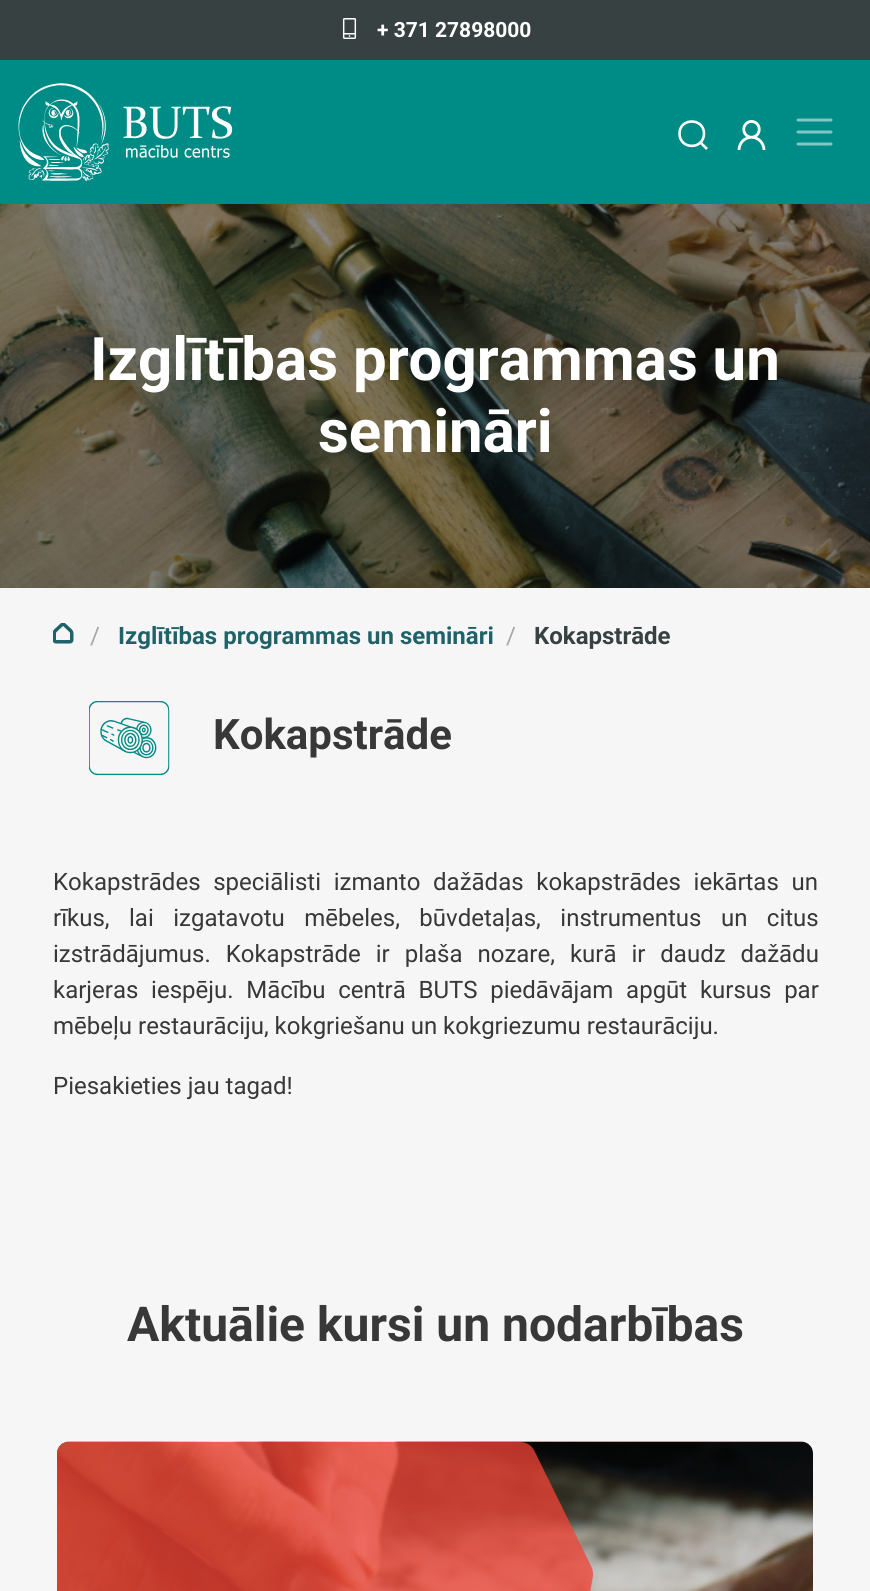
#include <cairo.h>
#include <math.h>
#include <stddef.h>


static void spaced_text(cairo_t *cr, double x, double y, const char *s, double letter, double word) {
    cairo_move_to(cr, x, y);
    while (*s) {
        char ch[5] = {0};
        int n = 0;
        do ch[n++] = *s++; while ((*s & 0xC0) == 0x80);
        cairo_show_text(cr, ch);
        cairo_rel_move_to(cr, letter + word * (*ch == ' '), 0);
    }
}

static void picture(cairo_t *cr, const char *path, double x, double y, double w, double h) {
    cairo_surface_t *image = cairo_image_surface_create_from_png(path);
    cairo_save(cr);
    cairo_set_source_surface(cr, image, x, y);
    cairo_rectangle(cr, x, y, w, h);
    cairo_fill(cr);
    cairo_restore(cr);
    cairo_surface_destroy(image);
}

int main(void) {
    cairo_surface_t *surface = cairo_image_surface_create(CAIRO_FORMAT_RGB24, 870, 1591);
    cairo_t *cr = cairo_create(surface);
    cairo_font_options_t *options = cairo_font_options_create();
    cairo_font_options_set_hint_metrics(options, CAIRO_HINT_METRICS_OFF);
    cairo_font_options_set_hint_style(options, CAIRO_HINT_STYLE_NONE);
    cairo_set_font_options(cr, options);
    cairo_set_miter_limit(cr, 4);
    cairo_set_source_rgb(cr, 0.961, 0.961, 0.961);
    cairo_paint(cr);
    cairo_set_source_rgb(cr, 0.216, 0.255, 0.259);
    cairo_rectangle(cr, 0, 0, 870, 60);
    cairo_fill(cr);
    picture(cr, "img1.png", 342, 18, 15, 21);
    cairo_select_font_face(cr, "Roboto", CAIRO_FONT_SLANT_NORMAL, CAIRO_FONT_WEIGHT_BOLD);
    cairo_set_font_size(cr, 21);
    cairo_set_source_rgb(cr, 1, 1, 1);
    cairo_move_to(cr, 377, 37);
    cairo_show_text(cr, "+ 371 27898000");
    cairo_set_source_rgb(cr, 0, 0.549, 0.525);
    cairo_rectangle(cr, 0, 60, 870, 144);
    cairo_fill(cr);
    picture(cr, "img2.png", 18, 83, 215, 98);
    cairo_new_path(cr);
    cairo_move_to(cr, 707, 149);
    cairo_line_to(cr, 700.5, 142.5);
    cairo_close_path(cr);
    cairo_move_to(cr, 704, 133.5);
    cairo_curve_to(cr, 704, 150, 679.5, 150, 679.5, 133.5);
    cairo_curve_to(cr, 679.5, 117.5, 704, 117.5, 704, 133.5);
    cairo_close_path(cr);
    cairo_set_source_rgb(cr, 1, 1, 1);
    cairo_set_line_width(cr, 2.6);
    cairo_set_line_cap(cr, CAIRO_LINE_CAP_ROUND);
    cairo_stroke(cr);
    picture(cr, "img3.png", 737, 120, 29, 30);
    cairo_new_path(cr);
    cairo_move_to(cr, 798, 120);
    cairo_line_to(cr, 831, 120);
    cairo_move_to(cr, 798, 132);
    cairo_line_to(cr, 831, 132);
    cairo_move_to(cr, 798, 144);
    cairo_line_to(cr, 831, 144);
    cairo_set_source_rgb(cr, 0.502, 0.776, 0.765);
    cairo_set_line_width(cr, 3);
    cairo_stroke(cr);
    picture(cr, "img4.png", 0, 204, 870, 384);
    cairo_set_font_size(cr, 60);
    cairo_set_source_rgb(cr, 1, 1, 1);
    cairo_move_to(cr, 90, 380);
    cairo_show_text(cr, "Izglītības programmas un");
    cairo_move_to(cr, 318, 452);
    cairo_show_text(cr, "semināri");
    picture(cr, "img5.png", 53, 623, 21, 21);
    cairo_select_font_face(cr, "Roboto", CAIRO_FONT_SLANT_NORMAL, CAIRO_FONT_WEIGHT_NORMAL);
    cairo_set_font_size(cr, 24);
    cairo_set_source_rgb(cr, 0.655, 0.655, 0.655);
    cairo_move_to(cr, 90, 644);
    cairo_show_text(cr, "/");
    cairo_select_font_face(cr, "Roboto", CAIRO_FONT_SLANT_NORMAL, CAIRO_FONT_WEIGHT_BOLD);
    cairo_set_source_rgb(cr, 0.125, 0.384, 0.412);
    cairo_move_to(cr, 118, 644);
    cairo_show_text(cr, "Izglītības programmas un semināri");
    cairo_select_font_face(cr, "Roboto", CAIRO_FONT_SLANT_NORMAL, CAIRO_FONT_WEIGHT_NORMAL);
    cairo_set_source_rgb(cr, 0.655, 0.655, 0.655);
    cairo_move_to(cr, 506, 644);
    cairo_show_text(cr, "/");
    cairo_select_font_face(cr, "Roboto", CAIRO_FONT_SLANT_NORMAL, CAIRO_FONT_WEIGHT_BOLD);
    cairo_set_source_rgb(cr, 0.216, 0.255, 0.259);
    cairo_move_to(cr, 534, 644);
    cairo_show_text(cr, "Kokapstrāde");
    picture(cr, "img6.png", 89, 701, 81, 74);
    cairo_set_font_size(cr, 42);
    cairo_set_source_rgb(cr, 0.22, 0.22, 0.22);
    cairo_move_to(cr, 213, 749);
    cairo_show_text(cr, "Kokapstrāde");
    cairo_select_font_face(cr, "Roboto", CAIRO_FONT_SLANT_NORMAL, CAIRO_FONT_WEIGHT_NORMAL);
    cairo_set_font_size(cr, 24);
    spaced_text(cr, 53, 890, "Kokapstrādes speciālisti izmanto dažādas kokapstrādes iekārtas un", 0, 6.75);
    spaced_text(cr, 53, 926, "rīkus, lai izgatavotu mēbeles, būvdetaļas, instrumentus un citus", 0, 13.5);
    spaced_text(cr, 53, 962, "izstrādājumus. Kokapstrāde ir plaša nozare, kurā ir daudz dažādu", 0, 9);
    spaced_text(cr, 53, 998, "karjeras iespēju. Mācību centrā BUTS piedāvājam apgūt kursus par", 0, 6.75);
    cairo_move_to(cr, 53, 1034);
    cairo_show_text(cr, "mēbeļu restaurāciju, kokgriešanu un kokgriezumu restaurāciju.");
    cairo_move_to(cr, 53, 1094);
    cairo_show_text(cr, "Piesakieties jau tagad!");
    cairo_select_font_face(cr, "Roboto", CAIRO_FONT_SLANT_NORMAL, CAIRO_FONT_WEIGHT_BOLD);
    cairo_set_font_size(cr, 48);
    cairo_move_to(cr, 127, 1341);
    cairo_show_text(cr, "Aktuālie kursi un nodarbības");
    picture(cr, "img7.png", 57, 1441, 756, 150);
    cairo_set_source_rgba(cr, 0, 0, 0, 0.11);
    cairo_new_path(cr);
    cairo_move_to(cr, 69, 1442);
    cairo_line_to(cr, 801, 1442);
    cairo_curve_to(cr, 807.5, 1442, 813, 1447.5, 813, 1454);
    cairo_line_to(cr, 813, 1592);
    cairo_line_to(cr, 57, 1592);
    cairo_line_to(cr, 57, 1454);
    cairo_curve_to(cr, 57, 1447.5, 62.5, 1442, 69, 1442);
    cairo_close_path(cr);
    cairo_fill(cr);
    cairo_set_source_rgba(cr, 0.957, 0.263, 0.212, 0.75);
    cairo_new_path(cr);
    cairo_move_to(cr, 69, 1442);
    cairo_curve_to(cr, 62, 1442, 57, 1447, 57, 1454);
    cairo_line_to(cr, 57, 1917);
    cairo_curve_to(cr, 57, 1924, 62, 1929, 69, 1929);
    cairo_line_to(cr, 517, 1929);
    cairo_curve_to(cr, 524, 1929, 530, 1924, 532, 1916);
    cairo_line_to(cr, 593, 1576);
    cairo_curve_to(cr, 593, 1573, 593, 1569, 591, 1566);
    cairo_line_to(cr, 534, 1450);
    cairo_curve_to(cr, 531, 1445, 526, 1442, 520, 1442);
    cairo_close_path(cr);
    cairo_fill(cr);
    cairo_surface_write_to_png(surface, "page.png");
    cairo_font_options_destroy(options);
    cairo_destroy(cr);
    cairo_surface_destroy(surface);
    return 0;
}
